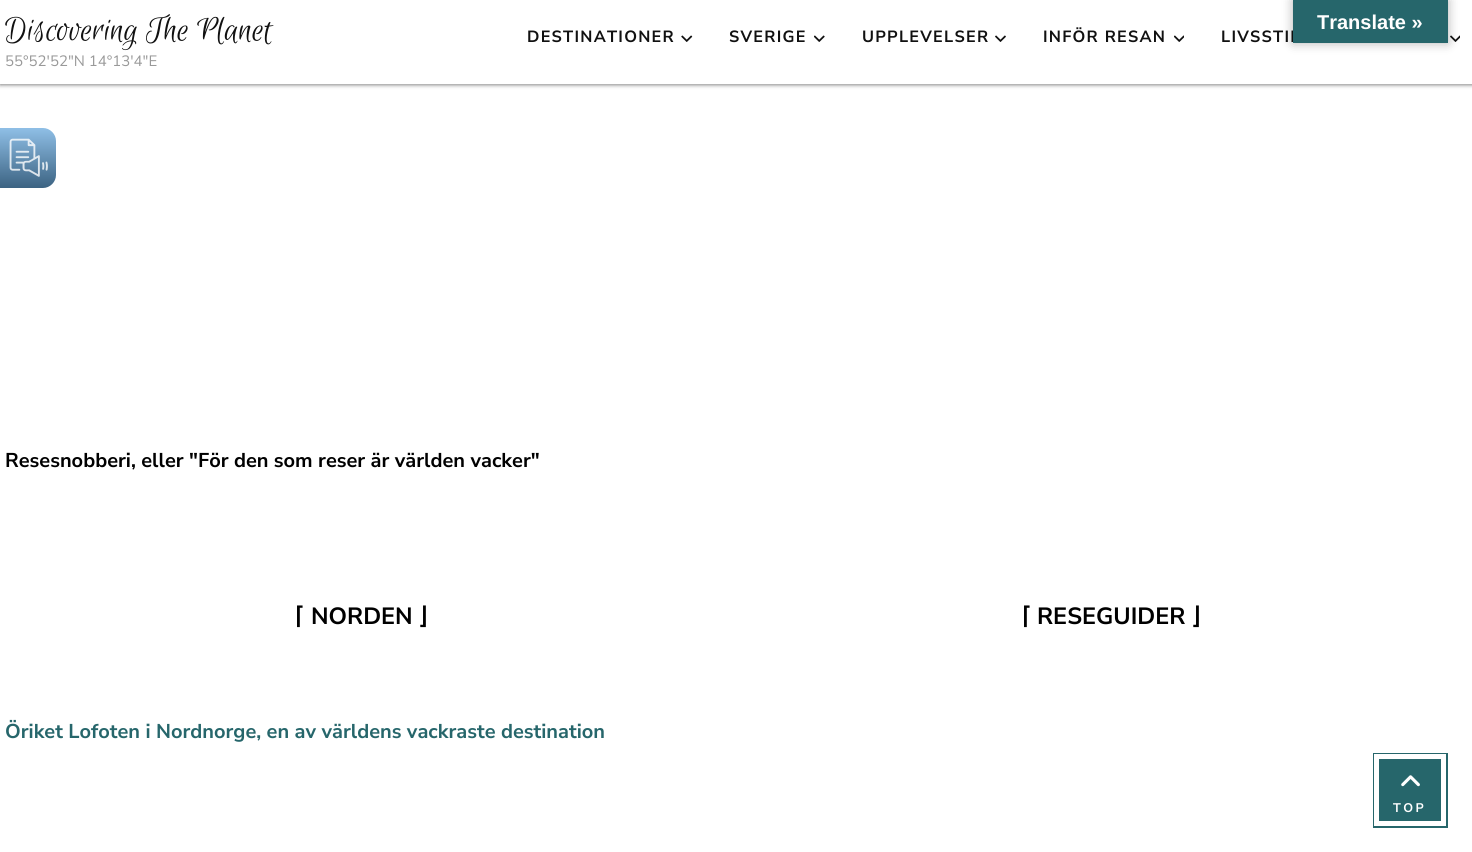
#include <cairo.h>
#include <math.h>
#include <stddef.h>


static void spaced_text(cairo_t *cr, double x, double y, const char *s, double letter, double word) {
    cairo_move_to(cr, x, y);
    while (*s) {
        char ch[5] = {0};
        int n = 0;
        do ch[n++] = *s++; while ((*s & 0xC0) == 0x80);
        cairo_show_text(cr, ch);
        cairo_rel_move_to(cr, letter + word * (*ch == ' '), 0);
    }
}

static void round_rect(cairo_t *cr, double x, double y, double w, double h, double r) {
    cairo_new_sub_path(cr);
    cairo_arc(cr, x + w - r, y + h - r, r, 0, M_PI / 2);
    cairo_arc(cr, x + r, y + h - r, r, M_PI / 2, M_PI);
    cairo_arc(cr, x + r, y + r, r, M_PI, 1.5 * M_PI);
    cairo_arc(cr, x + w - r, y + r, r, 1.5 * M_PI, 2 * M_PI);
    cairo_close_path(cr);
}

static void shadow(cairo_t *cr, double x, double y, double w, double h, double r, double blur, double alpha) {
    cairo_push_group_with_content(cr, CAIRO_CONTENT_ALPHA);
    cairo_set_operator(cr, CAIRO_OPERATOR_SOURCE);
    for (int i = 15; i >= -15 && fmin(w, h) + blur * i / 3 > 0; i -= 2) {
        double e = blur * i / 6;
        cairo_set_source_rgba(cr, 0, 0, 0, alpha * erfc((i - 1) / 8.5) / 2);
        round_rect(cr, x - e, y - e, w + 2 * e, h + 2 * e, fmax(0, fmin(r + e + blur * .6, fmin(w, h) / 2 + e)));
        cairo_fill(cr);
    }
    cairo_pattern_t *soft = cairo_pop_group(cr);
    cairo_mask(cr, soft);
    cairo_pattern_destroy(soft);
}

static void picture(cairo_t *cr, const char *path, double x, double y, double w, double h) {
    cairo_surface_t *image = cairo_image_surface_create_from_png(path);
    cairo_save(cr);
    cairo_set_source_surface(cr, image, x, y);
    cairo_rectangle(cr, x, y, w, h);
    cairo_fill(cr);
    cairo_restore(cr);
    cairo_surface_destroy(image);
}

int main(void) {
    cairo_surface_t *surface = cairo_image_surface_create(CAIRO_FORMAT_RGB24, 1472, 852);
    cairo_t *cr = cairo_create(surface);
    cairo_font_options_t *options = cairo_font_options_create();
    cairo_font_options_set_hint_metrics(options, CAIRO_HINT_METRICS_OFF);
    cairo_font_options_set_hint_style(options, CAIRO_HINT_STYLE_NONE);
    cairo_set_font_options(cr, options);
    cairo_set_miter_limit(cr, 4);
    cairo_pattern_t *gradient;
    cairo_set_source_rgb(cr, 1, 1, 1);
    cairo_paint(cr);
    cairo_set_source_rgb(cr, 0, 0, 0);
    shadow(cr, 0, 1, 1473, 84, 0, 2, 0.5);
    cairo_set_source_rgb(cr, 1, 1, 1);
    cairo_rectangle(cr, 0, 0, 1472, 84);
    cairo_fill(cr);
    cairo_select_font_face(cr, "Euphoria Script", CAIRO_FONT_SLANT_NORMAL, CAIRO_FONT_WEIGHT_NORMAL);
    cairo_set_font_size(cr, 37.5);
    cairo_set_source_rgb(cr, 0.067, 0.067, 0.067);
    cairo_move_to(cr, 5, 40);
    cairo_show_text(cr, "Discovering The Planet");
    cairo_select_font_face(cr, "Nunito Sans", CAIRO_FONT_SLANT_NORMAL, CAIRO_FONT_WEIGHT_NORMAL);
    cairo_set_font_size(cr, 15);
    cairo_set_source_rgb(cr, 0.6, 0.6, 0.6);
    cairo_move_to(cr, 5, 66);
    cairo_show_text(cr, "55°52'52\"N 14°13'4\"E");
    cairo_select_font_face(cr, "Nunito Sans", CAIRO_FONT_SLANT_NORMAL, CAIRO_FONT_WEIGHT_BOLD);
    cairo_set_font_size(cr, 16.25);
    cairo_set_source_rgb(cr, 0.067, 0.067, 0.067);
    spaced_text(cr, 527, 42, "DESTINATIONER", 1.25, 0);
    picture(cr, "img1.png", 681, 35, 12, 7);
    spaced_text(cr, 729, 42, "SVERIGE", 1.25, 0);
    picture(cr, "img2.png", 814, 35, 11, 7);
    spaced_text(cr, 862, 42, "UPPLEVELSER", 1.25, 0);
    picture(cr, "img3.png", 995, 35, 11, 7);
    spaced_text(cr, 1043, 42, "INFÖR RESAN", 1.25, 0);
    picture(cr, "img4.png", 1174, 35, 10, 7);
    spaced_text(cr, 1221, 42, "LIVSSTIL", 1.25, 0);
    picture(cr, "img5.png", 1450, 35, 10, 7);
    cairo_set_font_size(cr, 20);
    cairo_set_source_rgb(cr, 0, 0, 0);
    cairo_move_to(cr, 5, 467);
    cairo_show_text(cr, "Resesnobberi, eller \"För den som reser är världen vacker\"");
    cairo_select_font_face(cr, "DejaVu Sans", CAIRO_FONT_SLANT_NORMAL, CAIRO_FONT_WEIGHT_BOLD);
    cairo_set_font_size(cr, 23.5);
    cairo_move_to(cr, 295, 624);
    cairo_show_text(cr, "⌈");
    cairo_select_font_face(cr, "Nunito Sans", CAIRO_FONT_SLANT_NORMAL, CAIRO_FONT_WEIGHT_BOLD);
    cairo_move_to(cr, 311, 624);
    cairo_show_text(cr, "NORDEN");
    cairo_select_font_face(cr, "DejaVu Sans", CAIRO_FONT_SLANT_NORMAL, CAIRO_FONT_WEIGHT_BOLD);
    cairo_move_to(cr, 418, 624);
    cairo_show_text(cr, "⌋");
    cairo_select_font_face(cr, "Nunito Sans", CAIRO_FONT_SLANT_NORMAL, CAIRO_FONT_WEIGHT_BOLD);
    cairo_set_font_size(cr, 20);
    cairo_set_source_rgb(cr, 0.149, 0.4, 0.42);
    cairo_move_to(cr, 5, 738);
    cairo_show_text(cr, "Öriket Lofoten i Nordnorge, en av världens vackraste destination");
    cairo_select_font_face(cr, "DejaVu Sans", CAIRO_FONT_SLANT_NORMAL, CAIRO_FONT_WEIGHT_BOLD);
    cairo_set_font_size(cr, 23.5);
    cairo_set_source_rgb(cr, 0, 0, 0);
    cairo_move_to(cr, 1022, 624);
    cairo_show_text(cr, "⌈");
    cairo_select_font_face(cr, "Nunito Sans", CAIRO_FONT_SLANT_NORMAL, CAIRO_FONT_WEIGHT_BOLD);
    cairo_move_to(cr, 1037, 624);
    cairo_show_text(cr, "RESEGUIDER");
    cairo_select_font_face(cr, "DejaVu Sans", CAIRO_FONT_SLANT_NORMAL, CAIRO_FONT_WEIGHT_BOLD);
    cairo_move_to(cr, 1191, 624);
    cairo_show_text(cr, "⌋");
    cairo_set_source_rgb(cr, 0.149, 0.4, 0.42);
    cairo_rectangle(cr, 1373, 753, 75, 75);
    cairo_fill(cr);
    picture(cr, "img6.png", 1401, 775, 19, 12);
    cairo_rectangle(cr, 1376.5, 756.5, 67, 67);
    cairo_set_source_rgb(cr, 1, 1, 1);
    cairo_set_line_width(cr, 5);
    cairo_stroke(cr);
    cairo_select_font_face(cr, "Nunito Sans", CAIRO_FONT_SLANT_NORMAL, CAIRO_FONT_WEIGHT_BOLD);
    cairo_set_font_size(cr, 12.5);
    spaced_text(cr, 1393, 812, "TOP", 2.5, 0);
    cairo_set_source_rgb(cr, 0, 0, 0);
    shadow(cr, 1293, 0, 155, 43, 0, 5.5, 0.3);
    cairo_set_source_rgb(cr, 0.149, 0.4, 0.42);
    cairo_rectangle(cr, 1293, 0, 155, 43);
    cairo_fill(cr);
    cairo_select_font_face(cr, "Liberation Sans", CAIRO_FONT_SLANT_NORMAL, CAIRO_FONT_WEIGHT_BOLD);
    cairo_set_font_size(cr, 20);
    cairo_set_source_rgb(cr, 1, 1, 1);
    cairo_move_to(cr, 1317, 29);
    cairo_show_text(cr, "Translate »");
    gradient = cairo_pattern_create_linear(28, 128, 28, 188);
    cairo_pattern_add_color_stop_rgba(gradient, 0, 0.561, 0.749, 0.902, 1);
    cairo_pattern_add_color_stop_rgba(gradient, 1, 0.235, 0.388, 0.51, 1);
    cairo_set_source(cr, gradient);
    cairo_pattern_destroy(gradient);
    cairo_new_path(cr);
    cairo_move_to(cr, 0, 128);
    cairo_line_to(cr, 43, 128);
    cairo_curve_to(cr, 50, 128, 56, 134, 56, 141);
    cairo_line_to(cr, 56, 175);
    cairo_curve_to(cr, 56, 182, 50, 188, 43, 188);
    cairo_line_to(cr, 0, 188);
    cairo_close_path(cr);
    cairo_fill(cr);
    picture(cr, "img7.png", 9, 138, 39, 39);
    cairo_surface_write_to_png(surface, "page.png");
    cairo_font_options_destroy(options);
    cairo_destroy(cr);
    cairo_surface_destroy(surface);
    return 0;
}
